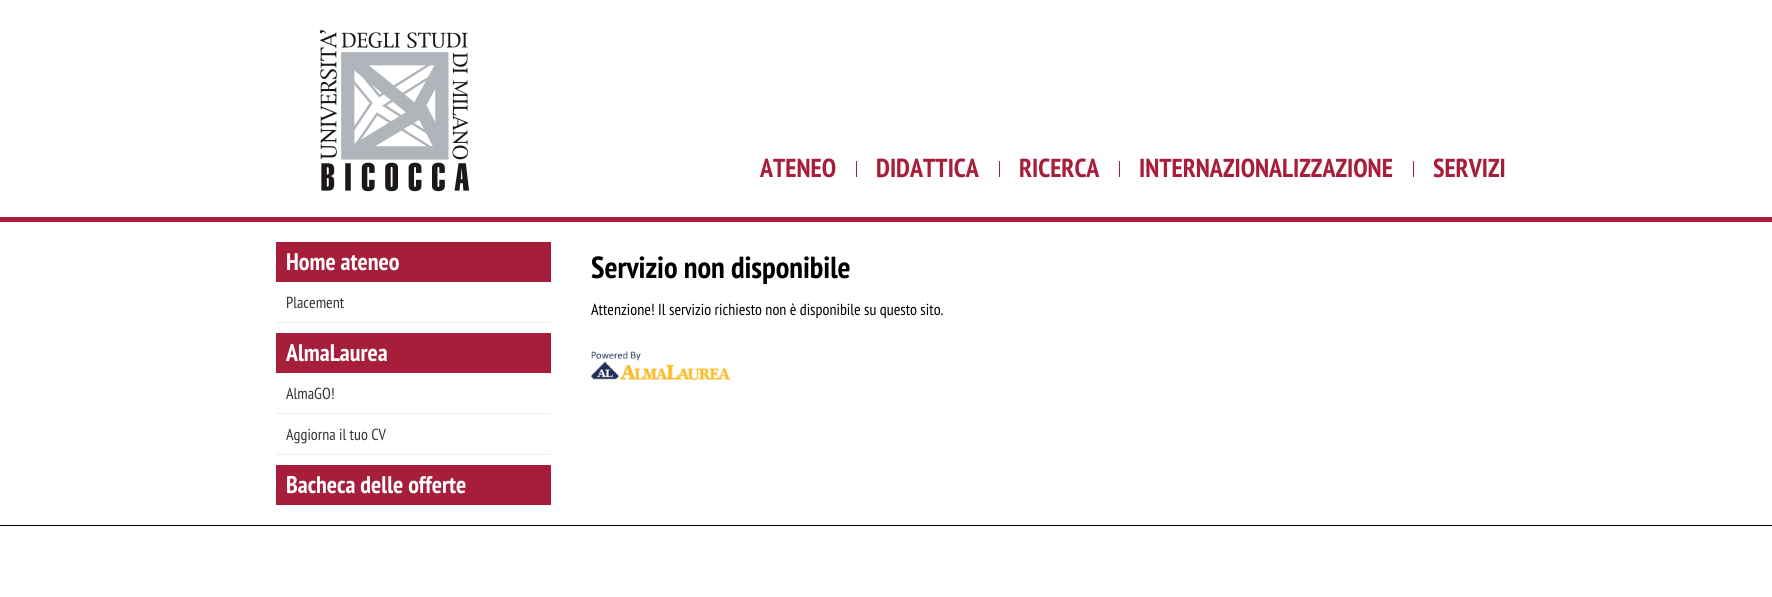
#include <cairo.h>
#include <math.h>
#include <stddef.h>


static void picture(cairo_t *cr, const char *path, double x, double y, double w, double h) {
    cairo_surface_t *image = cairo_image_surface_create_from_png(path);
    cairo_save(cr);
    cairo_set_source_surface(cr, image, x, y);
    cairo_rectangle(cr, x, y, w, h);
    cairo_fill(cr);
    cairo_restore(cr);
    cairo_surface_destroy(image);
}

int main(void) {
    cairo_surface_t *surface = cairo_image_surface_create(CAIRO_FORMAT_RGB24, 1772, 597);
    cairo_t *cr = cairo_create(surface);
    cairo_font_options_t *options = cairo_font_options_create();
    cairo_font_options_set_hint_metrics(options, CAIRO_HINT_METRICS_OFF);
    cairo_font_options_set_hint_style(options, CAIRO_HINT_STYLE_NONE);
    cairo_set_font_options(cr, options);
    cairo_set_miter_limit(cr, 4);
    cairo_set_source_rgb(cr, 1, 1, 1);
    cairo_paint(cr);
    picture(cr, "img1.png", 319, 30, 151, 162);
    cairo_select_font_face(cr, "PT Sans Narrow", CAIRO_FONT_SLANT_NORMAL, CAIRO_FONT_WEIGHT_BOLD);
    cairo_set_font_size(cr, 26);
    cairo_set_source_rgb(cr, 0.655, 0.118, 0.231);
    cairo_move_to(cr, 760, 177);
    cairo_show_text(cr, "ATENEO");
    cairo_rectangle(cr, 856, 161, 1, 16);
    cairo_fill(cr);
    cairo_move_to(cr, 876, 177);
    cairo_show_text(cr, "DIDATTICA");
    cairo_rectangle(cr, 999, 161, 1, 16);
    cairo_fill(cr);
    cairo_move_to(cr, 1019, 177);
    cairo_show_text(cr, "RICERCA");
    cairo_rectangle(cr, 1119, 161, 1, 16);
    cairo_fill(cr);
    cairo_move_to(cr, 1139, 177);
    cairo_show_text(cr, "INTERNAZIONALIZZAZIONE");
    cairo_rectangle(cr, 1413, 161, 1, 16);
    cairo_fill(cr);
    cairo_move_to(cr, 1433, 177);
    cairo_show_text(cr, "SERVIZI");
    cairo_rectangle(cr, 0, 217, 1772, 5);
    cairo_fill(cr);
    cairo_rectangle(cr, 276, 242, 275, 40);
    cairo_fill(cr);
    cairo_set_font_size(cr, 24);
    cairo_set_source_rgb(cr, 1, 1, 1);
    cairo_move_to(cr, 286, 270);
    cairo_show_text(cr, "Home ateneo");
    cairo_set_source_rgb(cr, 0.929, 0.929, 0.929);
    cairo_rectangle(cr, 276, 322, 275, 1);
    cairo_fill(cr);
    cairo_select_font_face(cr, "PT Sans Narrow", CAIRO_FONT_SLANT_NORMAL, CAIRO_FONT_WEIGHT_NORMAL);
    cairo_set_font_size(cr, 16);
    cairo_set_source_rgb(cr, 0.2, 0.2, 0.2);
    cairo_move_to(cr, 286, 308);
    cairo_show_text(cr, "Placement");
    cairo_set_source_rgb(cr, 0.655, 0.118, 0.231);
    cairo_rectangle(cr, 276, 333, 275, 40);
    cairo_fill(cr);
    cairo_select_font_face(cr, "PT Sans Narrow", CAIRO_FONT_SLANT_NORMAL, CAIRO_FONT_WEIGHT_BOLD);
    cairo_set_font_size(cr, 24);
    cairo_set_source_rgb(cr, 1, 1, 1);
    cairo_move_to(cr, 286, 361);
    cairo_show_text(cr, "AlmaLaurea");
    cairo_set_source_rgb(cr, 0.929, 0.929, 0.929);
    cairo_rectangle(cr, 276, 413, 275, 1);
    cairo_fill(cr);
    cairo_select_font_face(cr, "PT Sans Narrow", CAIRO_FONT_SLANT_NORMAL, CAIRO_FONT_WEIGHT_NORMAL);
    cairo_set_font_size(cr, 16);
    cairo_set_source_rgb(cr, 0.2, 0.2, 0.2);
    cairo_move_to(cr, 286, 399);
    cairo_show_text(cr, "AlmaGO!");
    cairo_set_source_rgb(cr, 0.929, 0.929, 0.929);
    cairo_rectangle(cr, 276, 454, 275, 1);
    cairo_fill(cr);
    cairo_set_source_rgb(cr, 0.2, 0.2, 0.2);
    cairo_move_to(cr, 286, 440);
    cairo_show_text(cr, "Aggiorna il tuo CV");
    cairo_set_source_rgb(cr, 0.655, 0.118, 0.231);
    cairo_rectangle(cr, 276, 465, 275, 40);
    cairo_fill(cr);
    cairo_select_font_face(cr, "PT Sans Narrow", CAIRO_FONT_SLANT_NORMAL, CAIRO_FONT_WEIGHT_BOLD);
    cairo_set_font_size(cr, 24);
    cairo_set_source_rgb(cr, 1, 1, 1);
    cairo_move_to(cr, 286, 493);
    cairo_show_text(cr, "Bacheca delle offerte");
    cairo_set_font_size(cr, 30.5);
    cairo_set_source_rgb(cr, 0, 0, 0);
    cairo_move_to(cr, 591, 278);
    cairo_show_text(cr, "Servizio non disponibile");
    cairo_select_font_face(cr, "PT Sans Narrow", CAIRO_FONT_SLANT_NORMAL, CAIRO_FONT_WEIGHT_NORMAL);
    cairo_set_font_size(cr, 16);
    cairo_move_to(cr, 591, 315);
    cairo_show_text(cr, "Attenzione! Il servizio richiesto non è disponibile su questo sito.");
    picture(cr, "img2.png", 591, 351, 140, 30);
    cairo_rectangle(cr, 0, 525, 1772, 1);
    cairo_fill(cr);
    cairo_surface_write_to_png(surface, "page.png");
    cairo_font_options_destroy(options);
    cairo_destroy(cr);
    cairo_surface_destroy(surface);
    return 0;
}
